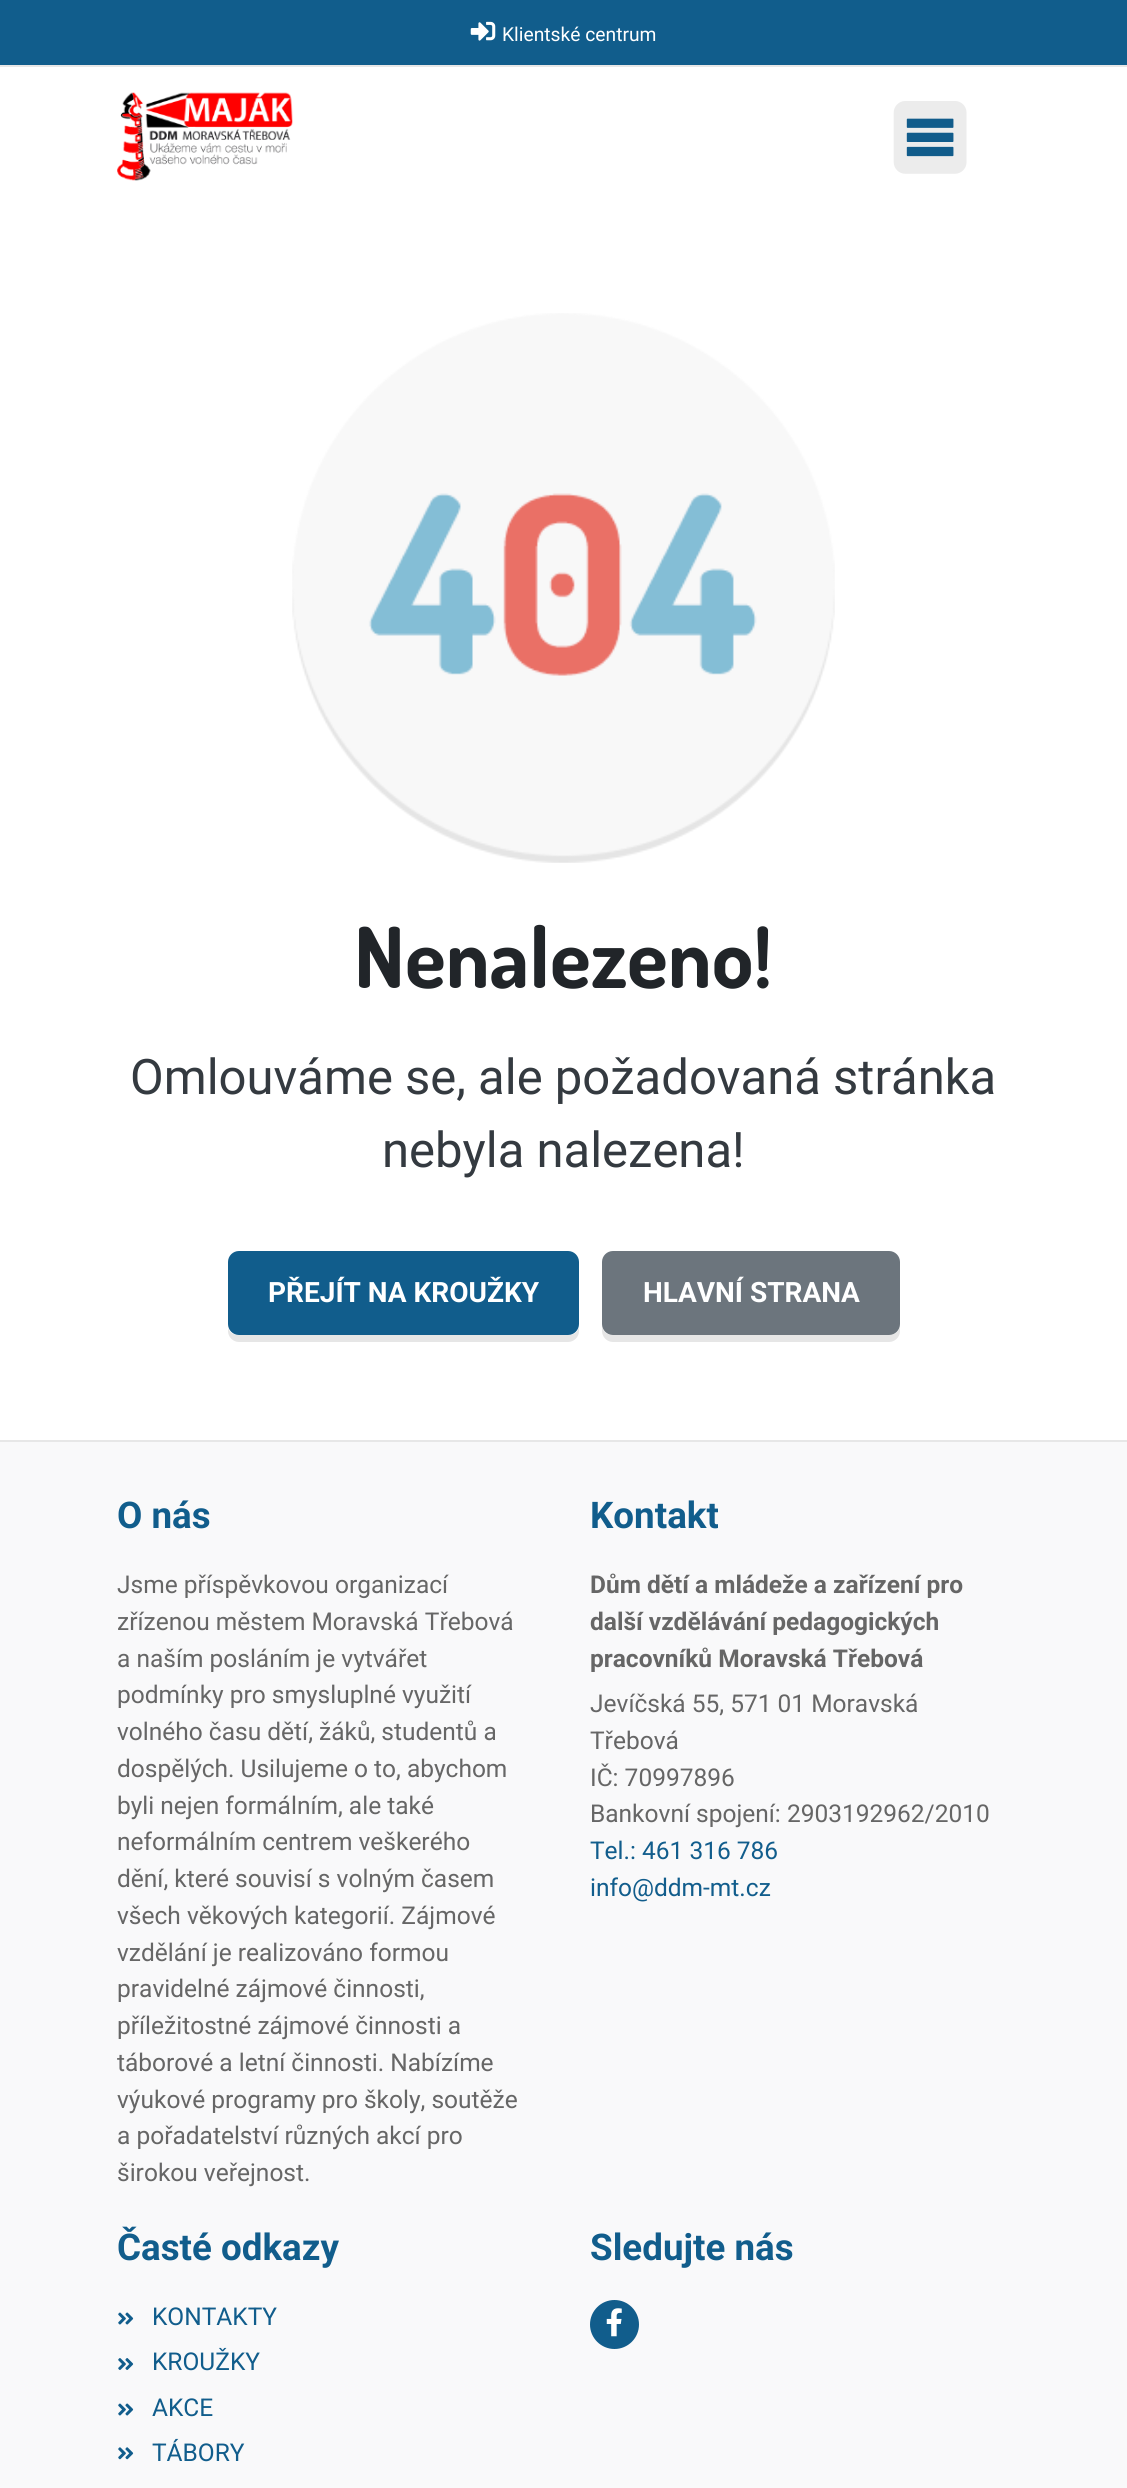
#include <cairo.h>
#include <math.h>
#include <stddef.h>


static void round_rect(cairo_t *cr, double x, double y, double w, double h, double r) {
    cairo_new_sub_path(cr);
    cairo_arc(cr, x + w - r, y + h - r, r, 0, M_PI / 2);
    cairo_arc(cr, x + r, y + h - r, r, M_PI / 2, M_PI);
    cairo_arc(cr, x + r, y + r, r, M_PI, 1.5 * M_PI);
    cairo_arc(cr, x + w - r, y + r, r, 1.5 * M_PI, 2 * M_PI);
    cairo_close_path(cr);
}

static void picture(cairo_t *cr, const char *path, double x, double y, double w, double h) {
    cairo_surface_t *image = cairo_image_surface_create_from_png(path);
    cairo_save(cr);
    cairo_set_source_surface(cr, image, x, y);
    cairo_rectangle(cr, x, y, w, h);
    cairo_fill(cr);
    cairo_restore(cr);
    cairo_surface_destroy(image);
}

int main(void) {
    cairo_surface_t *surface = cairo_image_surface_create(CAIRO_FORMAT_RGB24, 1127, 2488);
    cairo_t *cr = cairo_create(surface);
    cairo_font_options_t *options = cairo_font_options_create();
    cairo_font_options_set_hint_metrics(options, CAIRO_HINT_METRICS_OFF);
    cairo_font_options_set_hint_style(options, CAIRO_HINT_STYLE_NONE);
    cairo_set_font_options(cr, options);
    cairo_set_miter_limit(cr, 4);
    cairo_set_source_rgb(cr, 1, 1, 1);
    cairo_paint(cr);
    cairo_set_source_rgb(cr, 0.067, 0.365, 0.549);
    cairo_rectangle(cr, 0, 0, 1127, 65);
    cairo_fill(cr);
    cairo_set_source_rgb(cr, 0.906, 0.906, 0.906);
    cairo_rectangle(cr, 0, 65, 1127, 2);
    cairo_fill(cr);
    picture(cr, "img1.png", 470, 21, 26, 20);
    cairo_select_font_face(cr, "Roboto", CAIRO_FONT_SLANT_NORMAL, CAIRO_FONT_WEIGHT_NORMAL);
    cairo_set_font_size(cr, 19.25);
    cairo_set_source_rgb(cr, 1, 1, 1);
    cairo_move_to(cr, 502, 41);
    cairo_show_text(cr, "Klientské centrum");
    picture(cr, "img2.png", 117, 92, 176, 89);
    picture(cr, "img3.png", 893, 101, 74, 73);
    picture(cr, "img4.png", 292, 313, 543, 550);
    cairo_select_font_face(cr, "Dosis", CAIRO_FONT_SLANT_NORMAL, CAIRO_FONT_WEIGHT_BOLD);
    cairo_set_font_size(cr, 84);
    cairo_set_source_rgb(cr, 0.129, 0.145, 0.161);
    cairo_move_to(cr, 354, 988);
    cairo_show_text(cr, "Nenalezeno!");
    cairo_select_font_face(cr, "Roboto", CAIRO_FONT_SLANT_NORMAL, CAIRO_FONT_WEIGHT_NORMAL);
    cairo_set_font_size(cr, 49);
    cairo_set_source_rgb(cr, 0.204, 0.227, 0.251);
    cairo_move_to(cr, 130, 1094);
    cairo_show_text(cr, "Omlouváme se, ale požadovaná stránka");
    cairo_move_to(cr, 382, 1167);
    cairo_show_text(cr, "nebyla nalezena!");
    cairo_set_source_rgb(cr, 0.902, 0.902, 0.902);
    cairo_new_path(cr);
    cairo_move_to(cr, 228, 1328);
    cairo_line_to(cr, 228, 1331);
    cairo_curve_to(cr, 228, 1337, 233, 1342, 239, 1342);
    cairo_line_to(cr, 568, 1342);
    cairo_curve_to(cr, 574, 1342, 579, 1337, 579, 1331);
    cairo_line_to(cr, 579, 1327);
    cairo_curve_to(cr, 578, 1332, 574, 1335, 569, 1335);
    cairo_line_to(cr, 238, 1335);
    cairo_curve_to(cr, 233, 1335, 229, 1332, 228, 1328);
    cairo_close_path(cr);
    cairo_fill(cr);
    cairo_set_source_rgb(cr, 0.067, 0.365, 0.549);
    round_rect(cr, 230.5, 1253.5, 346, 79, 8.5);
    cairo_fill_preserve(cr);
    cairo_set_line_width(cr, 5);
    cairo_stroke(cr);
    cairo_select_font_face(cr, "Roboto", CAIRO_FONT_SLANT_NORMAL, CAIRO_FONT_WEIGHT_BOLD);
    cairo_set_font_size(cr, 28);
    cairo_set_source_rgb(cr, 1, 1, 1);
    cairo_move_to(cr, 268, 1302);
    cairo_show_text(cr, "PŘEJÍT NA KROUŽKY");
    cairo_set_source_rgb(cr, 0.902, 0.902, 0.902);
    cairo_new_path(cr);
    cairo_move_to(cr, 602, 1325);
    cairo_line_to(cr, 602, 1331);
    cairo_curve_to(cr, 602, 1337, 607, 1342, 613, 1342);
    cairo_line_to(cr, 889, 1342);
    cairo_curve_to(cr, 895, 1342, 900, 1337, 900, 1331);
    cairo_line_to(cr, 900, 1269);
    cairo_line_to(cr, 900, 1266);
    cairo_line_to(cr, 900, 1325);
    cairo_curve_to(cr, 900, 1331, 895, 1335, 889, 1335);
    cairo_line_to(cr, 612, 1335);
    cairo_curve_to(cr, 607, 1335, 602, 1331, 602, 1325);
    cairo_close_path(cr);
    cairo_fill(cr);
    cairo_set_source_rgb(cr, 0.424, 0.459, 0.49);
    round_rect(cr, 604.5, 1253.5, 293, 79, 8.5);
    cairo_fill_preserve(cr);
    cairo_stroke(cr);
    cairo_set_source_rgb(cr, 1, 1, 1);
    cairo_move_to(cr, 643, 1302);
    cairo_show_text(cr, "HLAVNÍ STRANA");
    cairo_set_source_rgb(cr, 0.906, 0.906, 0.906);
    cairo_rectangle(cr, 0, 1440, 1127, 2);
    cairo_fill(cr);
    cairo_set_source_rgb(cr, 0.973, 0.976, 0.98);
    cairo_rectangle(cr, 0, 1442, 1127, 1046);
    cairo_fill(cr);
    cairo_set_font_size(cr, 36.75);
    cairo_set_source_rgb(cr, 0.067, 0.365, 0.549);
    cairo_move_to(cr, 117, 1528);
    cairo_show_text(cr, "O nás");
    cairo_select_font_face(cr, "Roboto", CAIRO_FONT_SLANT_NORMAL, CAIRO_FONT_WEIGHT_NORMAL);
    cairo_set_font_size(cr, 24.5);
    cairo_set_source_rgb(cr, 0.4, 0.4, 0.4);
    cairo_move_to(cr, 117, 1593);
    cairo_show_text(cr, "Jsme příspěvkovou organizací");
    cairo_move_to(cr, 117, 1630);
    cairo_show_text(cr, "zřízenou městem Moravská Třebová");
    cairo_move_to(cr, 117, 1667);
    cairo_show_text(cr, "a naším posláním je vytvářet");
    cairo_move_to(cr, 117, 1703);
    cairo_show_text(cr, "podmínky pro smysluplné využití");
    cairo_move_to(cr, 117, 1740);
    cairo_show_text(cr, "volného času dětí, žáků, studentů a");
    cairo_move_to(cr, 117, 1777);
    cairo_show_text(cr, "dospělých. Usilujeme o to, abychom");
    cairo_move_to(cr, 117, 1814);
    cairo_show_text(cr, "byli nejen formálním, ale také");
    cairo_move_to(cr, 117, 1850);
    cairo_show_text(cr, "neformálním centrem veškerého");
    cairo_move_to(cr, 117, 1887);
    cairo_show_text(cr, "dění, které souvisí s volným časem");
    cairo_move_to(cr, 117, 1924);
    cairo_show_text(cr, "všech věkových kategorií. Zájmové");
    cairo_move_to(cr, 117, 1961);
    cairo_show_text(cr, "vzdělání je realizováno formou");
    cairo_move_to(cr, 117, 1997);
    cairo_show_text(cr, "pravidelné zájmové činnosti,");
    cairo_move_to(cr, 117, 2034);
    cairo_show_text(cr, "příležitostné zájmové činnosti a");
    cairo_move_to(cr, 117, 2071);
    cairo_show_text(cr, "táborové a letní činnosti. Nabízíme");
    cairo_move_to(cr, 117, 2108);
    cairo_show_text(cr, "výukové programy pro školy, soutěže");
    cairo_move_to(cr, 117, 2144);
    cairo_show_text(cr, "a pořadatelství různých akcí pro");
    cairo_move_to(cr, 117, 2181);
    cairo_show_text(cr, "širokou veřejnost.");
    cairo_select_font_face(cr, "Roboto", CAIRO_FONT_SLANT_NORMAL, CAIRO_FONT_WEIGHT_BOLD);
    cairo_set_font_size(cr, 36.75);
    cairo_set_source_rgb(cr, 0.067, 0.365, 0.549);
    cairo_move_to(cr, 590, 1528);
    cairo_show_text(cr, "Kontakt");
    cairo_set_font_size(cr, 24.5);
    cairo_set_source_rgb(cr, 0.4, 0.4, 0.4);
    cairo_move_to(cr, 590, 1593);
    cairo_show_text(cr, "Dům dětí a mládeže a zařízení pro");
    cairo_move_to(cr, 590, 1630);
    cairo_show_text(cr, "další vzdělávání pedagogických");
    cairo_move_to(cr, 590, 1667);
    cairo_show_text(cr, "pracovníků Moravská Třebová");
    cairo_select_font_face(cr, "Roboto", CAIRO_FONT_SLANT_NORMAL, CAIRO_FONT_WEIGHT_NORMAL);
    cairo_move_to(cr, 590, 1712);
    cairo_show_text(cr, "Jevíčská 55, 571 01 Moravská");
    cairo_move_to(cr, 590, 1749);
    cairo_show_text(cr, "Třebová");
    cairo_move_to(cr, 590, 1786);
    cairo_show_text(cr, "IČ: 70997896");
    cairo_move_to(cr, 590, 1822);
    cairo_show_text(cr, "Bankovní spojení: 2903192962/2010");
    cairo_set_source_rgb(cr, 0.067, 0.365, 0.549);
    cairo_move_to(cr, 590, 1859);
    cairo_show_text(cr, "Tel.: 461 316 786");
    cairo_move_to(cr, 590, 1896);
    cairo_show_text(cr, "info@ddm-mt.cz");
    cairo_select_font_face(cr, "Roboto", CAIRO_FONT_SLANT_NORMAL, CAIRO_FONT_WEIGHT_BOLD);
    cairo_set_font_size(cr, 36.75);
    cairo_move_to(cr, 117, 2260);
    cairo_show_text(cr, "Časté odkazy");
    picture(cr, "img5.png", 118, 2312, 16, 13);
    cairo_select_font_face(cr, "Roboto", CAIRO_FONT_SLANT_NORMAL, CAIRO_FONT_WEIGHT_NORMAL);
    cairo_set_font_size(cr, 24.5);
    cairo_move_to(cr, 152, 2325);
    cairo_show_text(cr, "KONTAKTY");
    picture(cr, "img6.png", 118, 2358, 16, 12);
    cairo_move_to(cr, 152, 2370);
    cairo_show_text(cr, "KROUŽKY");
    picture(cr, "img5.png", 118, 2403, 16, 13);
    cairo_move_to(cr, 152, 2416);
    cairo_show_text(cr, "AKCE");
    picture(cr, "img7.png", 118, 2447, 16, 13);
    cairo_move_to(cr, 152, 2461);
    cairo_show_text(cr, "TÁBORY");
    cairo_select_font_face(cr, "Roboto", CAIRO_FONT_SLANT_NORMAL, CAIRO_FONT_WEIGHT_BOLD);
    cairo_set_font_size(cr, 36.75);
    cairo_move_to(cr, 590, 2260);
    cairo_show_text(cr, "Sledujte nás");
    cairo_new_path(cr);
    cairo_arc(cr, 614.5, 2324.5, 24.5, 0, 2 * M_PI);
    cairo_fill(cr);
    picture(cr, "img8.png", 606, 2308, 16, 29);
    cairo_surface_write_to_png(surface, "page.png");
    cairo_font_options_destroy(options);
    cairo_destroy(cr);
    cairo_surface_destroy(surface);
    return 0;
}
